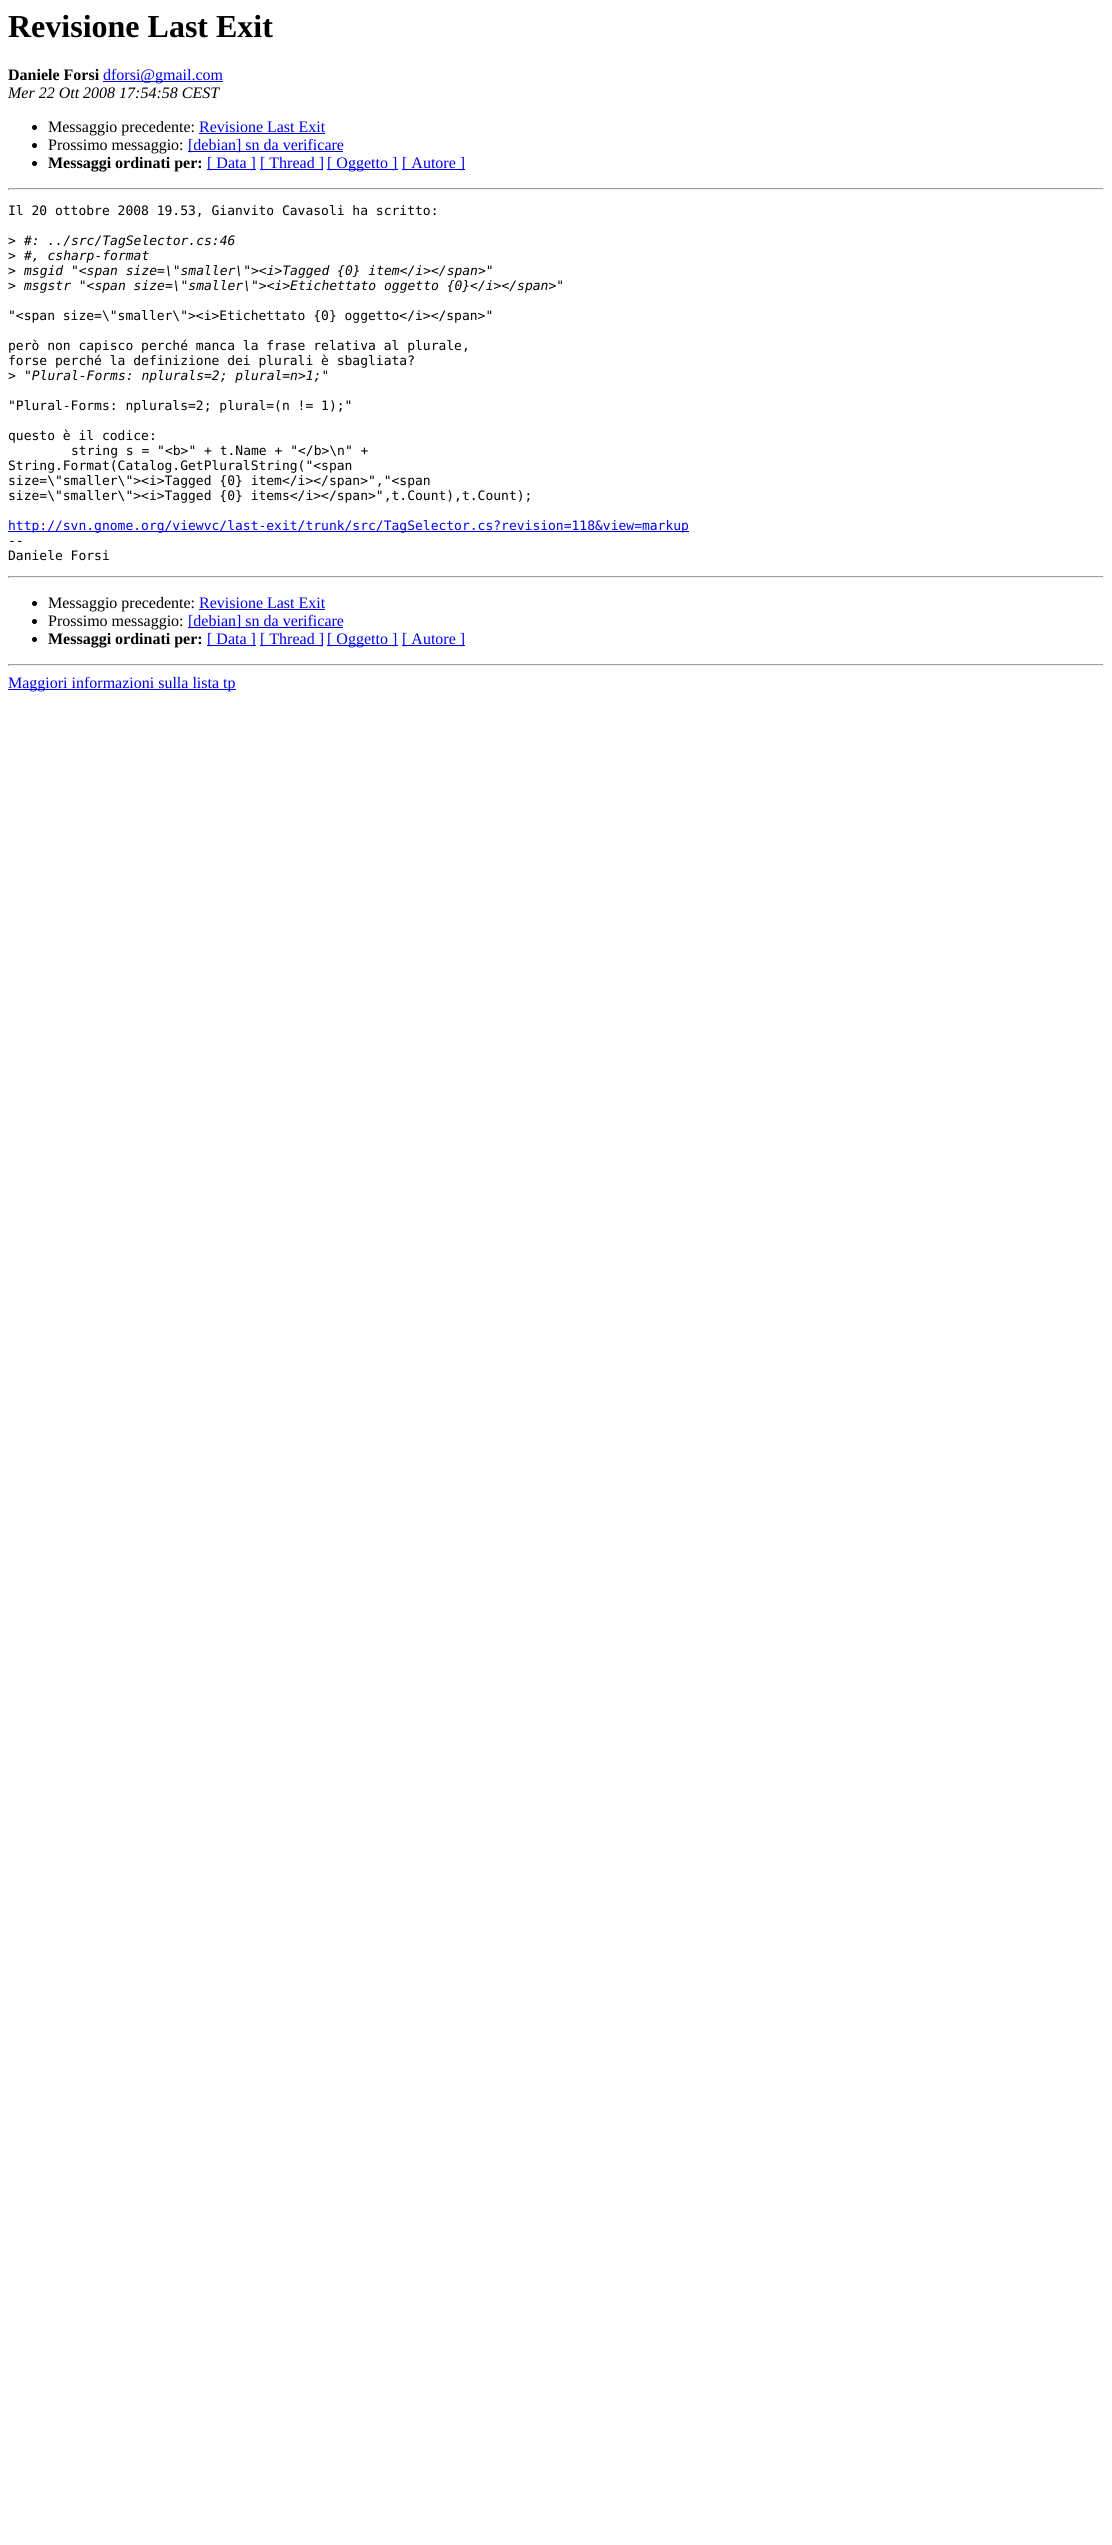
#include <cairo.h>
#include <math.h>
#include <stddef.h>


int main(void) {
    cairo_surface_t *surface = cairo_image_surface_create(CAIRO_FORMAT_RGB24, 1112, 2545);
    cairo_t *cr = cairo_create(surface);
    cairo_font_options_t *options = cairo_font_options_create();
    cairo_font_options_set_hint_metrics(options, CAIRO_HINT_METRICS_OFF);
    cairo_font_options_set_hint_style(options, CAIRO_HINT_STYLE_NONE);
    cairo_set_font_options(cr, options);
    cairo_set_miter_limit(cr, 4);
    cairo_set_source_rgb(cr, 1, 1, 1);
    cairo_paint(cr);
    cairo_select_font_face(cr, "Liberation Serif", CAIRO_FONT_SLANT_NORMAL, CAIRO_FONT_WEIGHT_BOLD);
    cairo_set_font_size(cr, 32);
    cairo_set_source_rgb(cr, 0, 0, 0);
    cairo_move_to(cr, 8, 37);
    cairo_show_text(cr, "Revisione Last Exit");
    cairo_set_font_size(cr, 16);
    cairo_move_to(cr, 8, 80);
    cairo_show_text(cr, "Daniele Forsi");
    cairo_set_source_rgb(cr, 0, 0, 0.933);
    cairo_rectangle(cr, 103, 81, 120, 1);
    cairo_fill(cr);
    cairo_select_font_face(cr, "Liberation Serif", CAIRO_FONT_SLANT_NORMAL, CAIRO_FONT_WEIGHT_NORMAL);
    cairo_move_to(cr, 103, 80);
    cairo_show_text(cr, "dforsi@gmail.com");
    cairo_select_font_face(cr, "Liberation Serif", CAIRO_FONT_SLANT_ITALIC, CAIRO_FONT_WEIGHT_NORMAL);
    cairo_set_source_rgb(cr, 0, 0, 0);
    cairo_move_to(cr, 8, 98);
    cairo_show_text(cr, "Mer 22 Ott 2008 17:54:58 CEST");
    cairo_new_path(cr);
    cairo_arc(cr, 34.5, 127.5, 2.5, 0, 2 * M_PI);
    cairo_fill(cr);
    cairo_select_font_face(cr, "Liberation Serif", CAIRO_FONT_SLANT_NORMAL, CAIRO_FONT_WEIGHT_NORMAL);
    cairo_move_to(cr, 48, 132);
    cairo_show_text(cr, "Messaggio precedente:");
    cairo_set_source_rgb(cr, 0, 0, 0.933);
    cairo_move_to(cr, 199, 132);
    cairo_show_text(cr, "Revisione Last Exit");
    cairo_rectangle(cr, 199, 133, 126, 1);
    cairo_fill(cr);
    cairo_set_source_rgb(cr, 0, 0, 0);
    cairo_arc(cr, 34.5, 145.5, 2.5, 0, 2 * M_PI);
    cairo_fill(cr);
    cairo_move_to(cr, 48, 150);
    cairo_show_text(cr, "Prossimo messaggio:");
    cairo_set_source_rgb(cr, 0, 0, 0.933);
    cairo_rectangle(cr, 188, 151, 155, 1);
    cairo_fill(cr);
    cairo_move_to(cr, 188, 150);
    cairo_show_text(cr, "[debian] sn da verificare");
    cairo_set_source_rgb(cr, 0, 0, 0);
    cairo_new_path(cr);
    cairo_arc(cr, 34.5, 163.5, 2.5, 0, 2 * M_PI);
    cairo_fill(cr);
    cairo_select_font_face(cr, "Liberation Serif", CAIRO_FONT_SLANT_NORMAL, CAIRO_FONT_WEIGHT_BOLD);
    cairo_move_to(cr, 48, 168);
    cairo_show_text(cr, "Messaggi ordinati per:");
    cairo_set_source_rgb(cr, 0, 0, 0.933);
    cairo_rectangle(cr, 207, 169, 49, 1);
    cairo_fill(cr);
    cairo_select_font_face(cr, "Liberation Serif", CAIRO_FONT_SLANT_NORMAL, CAIRO_FONT_WEIGHT_NORMAL);
    cairo_move_to(cr, 207, 168);
    cairo_show_text(cr, "[ Data ]");
    cairo_rectangle(cr, 260, 169, 63, 1);
    cairo_fill(cr);
    cairo_move_to(cr, 260, 168);
    cairo_show_text(cr, "[ Thread ]");
    cairo_rectangle(cr, 327, 169, 71, 1);
    cairo_fill(cr);
    cairo_move_to(cr, 327, 168);
    cairo_show_text(cr, "[ Oggetto ]");
    cairo_rectangle(cr, 402, 169, 63, 1);
    cairo_fill(cr);
    cairo_move_to(cr, 402, 168);
    cairo_show_text(cr, "[ Autore ]");
    cairo_set_source_rgb(cr, 0.624, 0.624, 0.624);
    cairo_rectangle(cr, 8, 188, 1096, 1);
    cairo_fill(cr);
    cairo_set_source_rgb(cr, 0.933, 0.933, 0.933);
    cairo_rectangle(cr, 1103, 188, 1, 2);
    cairo_fill(cr);
    cairo_rectangle(cr, 8, 189, 1096, 1);
    cairo_fill(cr);
    cairo_set_source_rgb(cr, 0.624, 0.624, 0.624);
    cairo_rectangle(cr, 8, 188, 1, 2);
    cairo_fill(cr);
    cairo_select_font_face(cr, "DejaVu Sans Mono", CAIRO_FONT_SLANT_NORMAL, CAIRO_FONT_WEIGHT_NORMAL);
    cairo_set_font_size(cr, 13);
    cairo_set_source_rgb(cr, 0, 0, 0);
    cairo_move_to(cr, 8, 215);
    cairo_show_text(cr, "Il 20 ottobre 2008 19.53, Gianvito Cavasoli ha scritto:");
    cairo_move_to(cr, 8, 245);
    cairo_show_text(cr, ">");
    cairo_select_font_face(cr, "DejaVu Sans Mono", CAIRO_FONT_SLANT_ITALIC, CAIRO_FONT_WEIGHT_NORMAL);
    cairo_move_to(cr, 24, 245);
    cairo_show_text(cr, "#: ../src/TagSelector.cs:46");
    cairo_select_font_face(cr, "DejaVu Sans Mono", CAIRO_FONT_SLANT_NORMAL, CAIRO_FONT_WEIGHT_NORMAL);
    cairo_move_to(cr, 8, 260);
    cairo_show_text(cr, ">");
    cairo_select_font_face(cr, "DejaVu Sans Mono", CAIRO_FONT_SLANT_ITALIC, CAIRO_FONT_WEIGHT_NORMAL);
    cairo_move_to(cr, 24, 260);
    cairo_show_text(cr, "#, csharp-format");
    cairo_select_font_face(cr, "DejaVu Sans Mono", CAIRO_FONT_SLANT_NORMAL, CAIRO_FONT_WEIGHT_NORMAL);
    cairo_move_to(cr, 8, 275);
    cairo_show_text(cr, ">");
    cairo_select_font_face(cr, "DejaVu Sans Mono", CAIRO_FONT_SLANT_ITALIC, CAIRO_FONT_WEIGHT_NORMAL);
    cairo_move_to(cr, 24, 275);
    cairo_show_text(cr, "msgid \"<span size=\\\"smaller\\\"><i>Tagged {0} item</i></span>\"");
    cairo_select_font_face(cr, "DejaVu Sans Mono", CAIRO_FONT_SLANT_NORMAL, CAIRO_FONT_WEIGHT_NORMAL);
    cairo_move_to(cr, 8, 290);
    cairo_show_text(cr, ">");
    cairo_select_font_face(cr, "DejaVu Sans Mono", CAIRO_FONT_SLANT_ITALIC, CAIRO_FONT_WEIGHT_NORMAL);
    cairo_move_to(cr, 24, 290);
    cairo_show_text(cr, "msgstr \"<span size=\\\"smaller\\\"><i>Etichettato oggetto {0}</i></span>\"");
    cairo_select_font_face(cr, "DejaVu Sans Mono", CAIRO_FONT_SLANT_NORMAL, CAIRO_FONT_WEIGHT_NORMAL);
    cairo_move_to(cr, 8, 320);
    cairo_show_text(cr, "\"<span size=\\\"smaller\\\"><i>Etichettato {0} oggetto</i></span>\"");
    cairo_move_to(cr, 8, 350);
    cairo_show_text(cr, "però non capisco perché manca la frase relativa al plurale,");
    cairo_move_to(cr, 8, 365);
    cairo_show_text(cr, "forse perché la definizione dei plurali è sbagliata?");
    cairo_move_to(cr, 8, 380);
    cairo_show_text(cr, ">");
    cairo_select_font_face(cr, "DejaVu Sans Mono", CAIRO_FONT_SLANT_ITALIC, CAIRO_FONT_WEIGHT_NORMAL);
    cairo_move_to(cr, 24, 380);
    cairo_show_text(cr, "\"Plural-Forms: nplurals=2; plural=n>1;\"");
    cairo_select_font_face(cr, "DejaVu Sans Mono", CAIRO_FONT_SLANT_NORMAL, CAIRO_FONT_WEIGHT_NORMAL);
    cairo_move_to(cr, 8, 410);
    cairo_show_text(cr, "\"Plural-Forms: nplurals=2; plural=(n != 1);\"");
    cairo_move_to(cr, 8, 440);
    cairo_show_text(cr, "questo è il codice:");
    cairo_move_to(cr, 71, 455);
    cairo_show_text(cr, "string s = \"<b>\" + t.Name + \"</b>\\n\" +");
    cairo_move_to(cr, 8, 470);
    cairo_show_text(cr, "String.Format(Catalog.GetPluralString(\"<span");
    cairo_move_to(cr, 8, 485);
    cairo_show_text(cr, "size=\\\"smaller\\\"><i>Tagged {0} item</i></span>\",\"<span");
    cairo_move_to(cr, 8, 500);
    cairo_show_text(cr, "size=\\\"smaller\\\"><i>Tagged {0} items</i></span>\",t.Count),t.Count);");
    cairo_set_source_rgb(cr, 0, 0, 0.933);
    cairo_rectangle(cr, 8, 531, 681, 1);
    cairo_fill(cr);
    cairo_move_to(cr, 8, 530);
    cairo_show_text(cr, "http://svn.gnome.org/viewvc/last-exit/trunk/src/TagSelector.cs?revision=118&view=markup");
    cairo_set_source_rgb(cr, 0, 0, 0);
    cairo_move_to(cr, 8, 545);
    cairo_show_text(cr, "--");
    cairo_move_to(cr, 8, 560);
    cairo_show_text(cr, "Daniele Forsi");
    cairo_set_source_rgb(cr, 0.624, 0.624, 0.624);
    cairo_rectangle(cr, 8, 576, 1096, 1);
    cairo_fill(cr);
    cairo_set_source_rgb(cr, 0.933, 0.933, 0.933);
    cairo_rectangle(cr, 1103, 576, 1, 2);
    cairo_fill(cr);
    cairo_rectangle(cr, 8, 577, 1096, 1);
    cairo_fill(cr);
    cairo_set_source_rgb(cr, 0.624, 0.624, 0.624);
    cairo_rectangle(cr, 8, 576, 1, 2);
    cairo_fill(cr);
    cairo_set_source_rgb(cr, 0, 0, 0);
    cairo_arc(cr, 34.5, 603.5, 2.5, 0, 2 * M_PI);
    cairo_fill(cr);
    cairo_select_font_face(cr, "Liberation Serif", CAIRO_FONT_SLANT_NORMAL, CAIRO_FONT_WEIGHT_NORMAL);
    cairo_set_font_size(cr, 16);
    cairo_move_to(cr, 48, 608);
    cairo_show_text(cr, "Messaggio precedente:");
    cairo_set_source_rgb(cr, 0, 0, 0.933);
    cairo_move_to(cr, 199, 608);
    cairo_show_text(cr, "Revisione Last Exit");
    cairo_rectangle(cr, 199, 609, 126, 1);
    cairo_fill(cr);
    cairo_set_source_rgb(cr, 0, 0, 0);
    cairo_arc(cr, 34.5, 621.5, 2.5, 0, 2 * M_PI);
    cairo_fill(cr);
    cairo_move_to(cr, 48, 626);
    cairo_show_text(cr, "Prossimo messaggio:");
    cairo_set_source_rgb(cr, 0, 0, 0.933);
    cairo_rectangle(cr, 188, 627, 155, 1);
    cairo_fill(cr);
    cairo_move_to(cr, 188, 626);
    cairo_show_text(cr, "[debian] sn da verificare");
    cairo_set_source_rgb(cr, 0, 0, 0);
    cairo_new_path(cr);
    cairo_arc(cr, 34.5, 639.5, 2.5, 0, 2 * M_PI);
    cairo_fill(cr);
    cairo_select_font_face(cr, "Liberation Serif", CAIRO_FONT_SLANT_NORMAL, CAIRO_FONT_WEIGHT_BOLD);
    cairo_move_to(cr, 48, 644);
    cairo_show_text(cr, "Messaggi ordinati per:");
    cairo_set_source_rgb(cr, 0, 0, 0.933);
    cairo_rectangle(cr, 207, 645, 49, 1);
    cairo_fill(cr);
    cairo_select_font_face(cr, "Liberation Serif", CAIRO_FONT_SLANT_NORMAL, CAIRO_FONT_WEIGHT_NORMAL);
    cairo_move_to(cr, 207, 644);
    cairo_show_text(cr, "[ Data ]");
    cairo_rectangle(cr, 260, 645, 63, 1);
    cairo_fill(cr);
    cairo_move_to(cr, 260, 644);
    cairo_show_text(cr, "[ Thread ]");
    cairo_rectangle(cr, 327, 645, 71, 1);
    cairo_fill(cr);
    cairo_move_to(cr, 327, 644);
    cairo_show_text(cr, "[ Oggetto ]");
    cairo_rectangle(cr, 402, 645, 63, 1);
    cairo_fill(cr);
    cairo_move_to(cr, 402, 644);
    cairo_show_text(cr, "[ Autore ]");
    cairo_set_source_rgb(cr, 0.624, 0.624, 0.624);
    cairo_rectangle(cr, 8, 664, 1096, 1);
    cairo_fill(cr);
    cairo_set_source_rgb(cr, 0.933, 0.933, 0.933);
    cairo_rectangle(cr, 1103, 664, 1, 2);
    cairo_fill(cr);
    cairo_rectangle(cr, 8, 665, 1096, 1);
    cairo_fill(cr);
    cairo_set_source_rgb(cr, 0.624, 0.624, 0.624);
    cairo_rectangle(cr, 8, 664, 1, 2);
    cairo_fill(cr);
    cairo_set_source_rgb(cr, 0, 0, 0.933);
    cairo_rectangle(cr, 8, 689, 228, 1);
    cairo_fill(cr);
    cairo_move_to(cr, 8, 688);
    cairo_show_text(cr, "Maggiori informazioni sulla lista tp");
    cairo_surface_write_to_png(surface, "page.png");
    cairo_font_options_destroy(options);
    cairo_destroy(cr);
    cairo_surface_destroy(surface);
    return 0;
}
